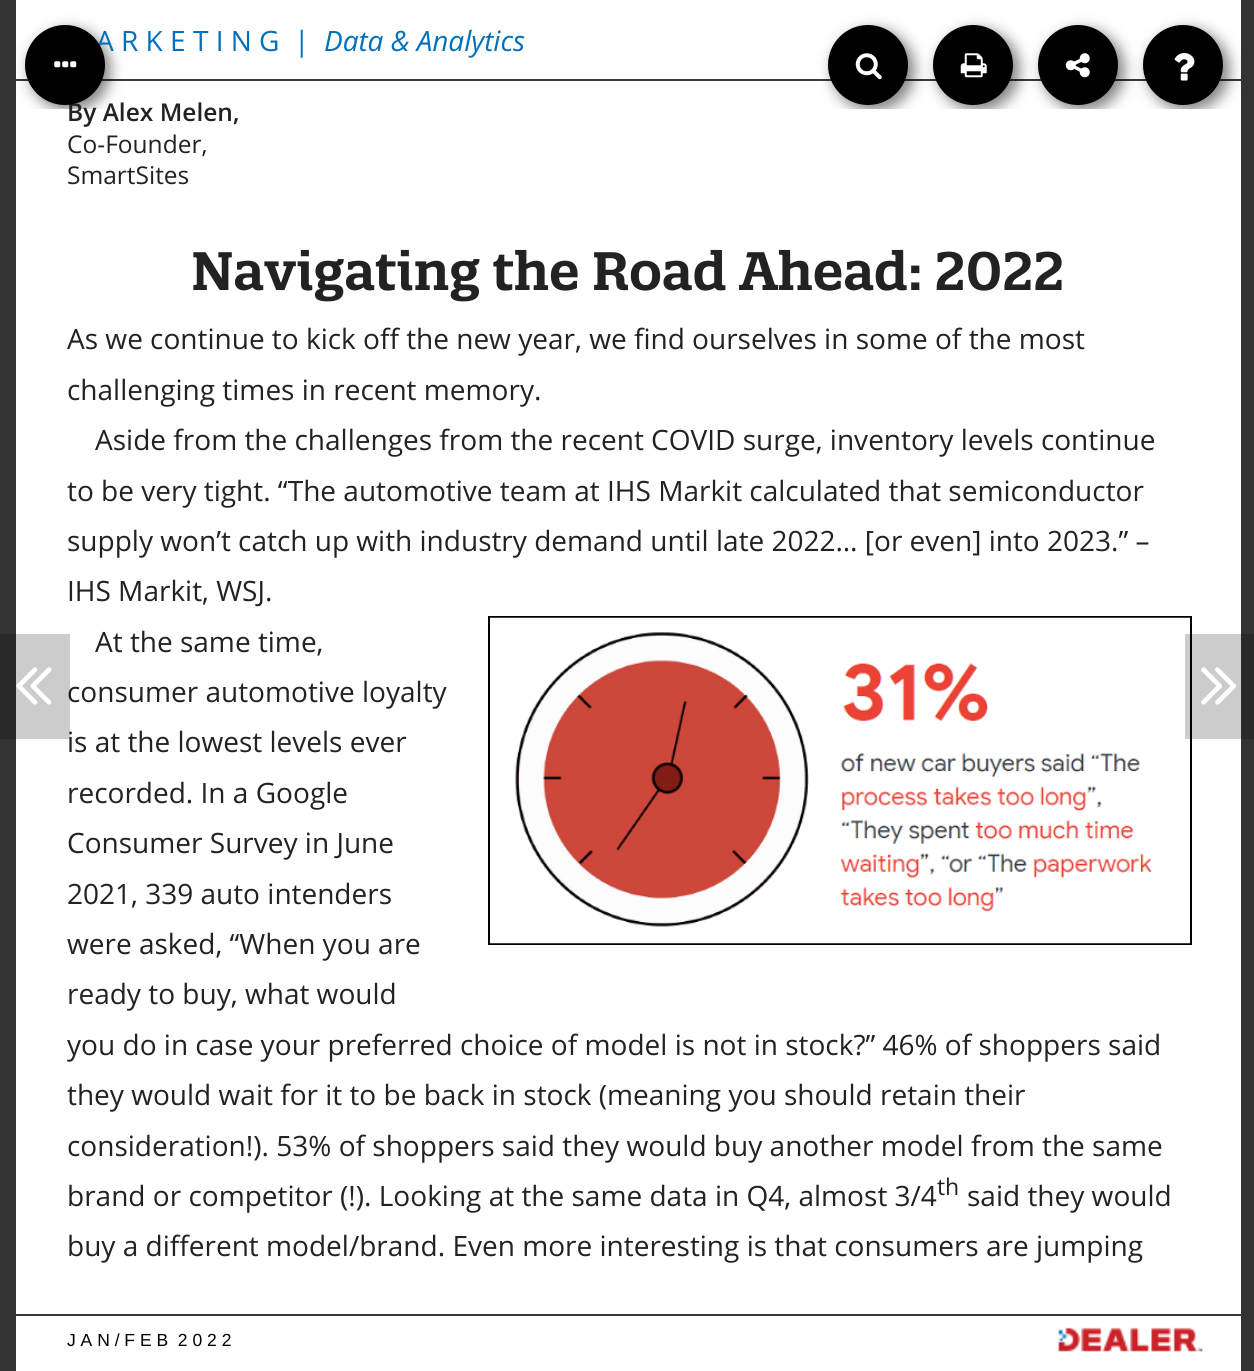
#include <cairo.h>
#include <math.h>
#include <stddef.h>


static void round_rect(cairo_t *cr, double x, double y, double w, double h, double r) {
    cairo_new_sub_path(cr);
    cairo_arc(cr, x + w - r, y + h - r, r, 0, M_PI / 2);
    cairo_arc(cr, x + r, y + h - r, r, M_PI / 2, M_PI);
    cairo_arc(cr, x + r, y + r, r, M_PI, 1.5 * M_PI);
    cairo_arc(cr, x + w - r, y + r, r, 1.5 * M_PI, 2 * M_PI);
    cairo_close_path(cr);
}

static void shadow(cairo_t *cr, double x, double y, double w, double h, double r, double blur, double alpha) {
    cairo_push_group_with_content(cr, CAIRO_CONTENT_ALPHA);
    cairo_set_operator(cr, CAIRO_OPERATOR_SOURCE);
    for (int i = 15; i >= -15 && fmin(w, h) + blur * i / 3 > 0; i -= 2) {
        double e = blur * i / 6;
        cairo_set_source_rgba(cr, 0, 0, 0, alpha * erfc((i - 1) / 8.5) / 2);
        round_rect(cr, x - e, y - e, w + 2 * e, h + 2 * e, fmax(0, fmin(r + e + blur * .6, fmin(w, h) / 2 + e)));
        cairo_fill(cr);
    }
    cairo_pattern_t *soft = cairo_pop_group(cr);
    cairo_mask(cr, soft);
    cairo_pattern_destroy(soft);
}

static void picture(cairo_t *cr, const char *path, double x, double y, double w, double h) {
    cairo_surface_t *image = cairo_image_surface_create_from_png(path);
    cairo_save(cr);
    cairo_set_source_surface(cr, image, x, y);
    cairo_rectangle(cr, x, y, w, h);
    cairo_fill(cr);
    cairo_restore(cr);
    cairo_surface_destroy(image);
}

int main(void) {
    cairo_surface_t *surface = cairo_image_surface_create(CAIRO_FORMAT_RGB24, 1254, 1371);
    cairo_t *cr = cairo_create(surface);
    cairo_font_options_t *options = cairo_font_options_create();
    cairo_font_options_set_hint_metrics(options, CAIRO_HINT_METRICS_OFF);
    cairo_font_options_set_hint_style(options, CAIRO_HINT_STYLE_NONE);
    cairo_set_font_options(cr, options);
    cairo_set_miter_limit(cr, 4);
    cairo_set_source_rgb(cr, 0.2, 0.2, 0.2);
    cairo_paint(cr);
    cairo_set_source_rgb(cr, 1, 1, 1);
    cairo_rectangle(cr, 16, 0, 1225, 1371);
    cairo_fill(cr);
    cairo_set_source_rgb(cr, 0.212, 0.224, 0.259);
    cairo_rectangle(cr, 16, 79, 1225, 2);
    cairo_fill(cr);
    cairo_save(cr);
    cairo_rectangle(cr, 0, 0, 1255, 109);
    cairo_clip(cr);
    cairo_set_source_rgb(cr, 0, 0, 0);
    shadow(cr, 30, 30, 80, 80, 40, 7, 0.5);
    cairo_restore(cr);
    cairo_select_font_face(cr, "Open Sans", CAIRO_FONT_SLANT_NORMAL, CAIRO_FONT_WEIGHT_NORMAL);
    cairo_set_font_size(cr, 28);
    cairo_set_source_rgb(cr, 0, 0.439, 0.729);
    cairo_move_to(cr, 96, 51);
    cairo_show_text(cr, "A R K E T I N G  |");
    cairo_select_font_face(cr, "Open Sans SemiBold", CAIRO_FONT_SLANT_NORMAL, CAIRO_FONT_WEIGHT_NORMAL);
    cairo_set_font_size(cr, 24.5);
    cairo_set_source_rgb(cr, 0.133, 0.133, 0.133);
    cairo_move_to(cr, 67, 121);
    cairo_show_text(cr, "By Alex Melen,");
    cairo_set_source_rgb(cr, 0, 0, 0);
    cairo_new_path(cr);
    cairo_arc(cr, 65, 65, 40, 0, 2 * M_PI);
    cairo_fill(cr);
    picture(cr, "img1.png", 54, 61, 23, 7);
    cairo_save(cr);
    cairo_rectangle(cr, 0, 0, 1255, 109);
    cairo_clip(cr);
    cairo_set_source_rgb(cr, 0, 0, 0);
    shadow(cr, 1148, 30, 81, 80, 40, 7, 0.5);
    cairo_restore(cr);
    cairo_arc(cr, 1183, 65, 40, 0, 2 * M_PI);
    cairo_fill(cr);
    cairo_save(cr);
    cairo_rectangle(cr, 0, 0, 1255, 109);
    cairo_clip(cr);
    cairo_set_source_rgb(cr, 0, 0, 0);
    shadow(cr, 1043, 30, 81, 80, 40, 7, 0.5);
    cairo_restore(cr);
    cairo_arc(cr, 1078, 65, 40, 0, 2 * M_PI);
    cairo_fill(cr);
    cairo_save(cr);
    cairo_rectangle(cr, 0, 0, 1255, 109);
    cairo_clip(cr);
    cairo_set_source_rgb(cr, 0, 0, 0);
    shadow(cr, 938, 30, 81, 80, 40, 7, 0.5);
    cairo_restore(cr);
    cairo_arc(cr, 973, 65, 40, 0, 2 * M_PI);
    cairo_fill(cr);
    cairo_save(cr);
    cairo_rectangle(cr, 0, 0, 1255, 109);
    cairo_clip(cr);
    cairo_set_source_rgb(cr, 0, 0, 0);
    shadow(cr, 833, 30, 81, 80, 40, 7, 0.5);
    cairo_restore(cr);
    cairo_arc(cr, 868, 65, 40, 0, 2 * M_PI);
    cairo_fill(cr);
    picture(cr, "img2.png", 855, 53, 27, 27);
    picture(cr, "img3.png", 960, 53, 27, 25);
    picture(cr, "img4.png", 1065, 53, 25, 25);
    picture(cr, "img5.png", 1174, 53, 21, 28);
    cairo_select_font_face(cr, "Open Sans", CAIRO_FONT_SLANT_ITALIC, CAIRO_FONT_WEIGHT_NORMAL);
    cairo_set_font_size(cr, 28);
    cairo_set_source_rgb(cr, 0, 0.439, 0.729);
    cairo_move_to(cr, 324, 51);
    cairo_show_text(cr, "Data & Analytics");
    cairo_select_font_face(cr, "Open Sans", CAIRO_FONT_SLANT_NORMAL, CAIRO_FONT_WEIGHT_NORMAL);
    cairo_set_font_size(cr, 24.5);
    cairo_set_source_rgb(cr, 0.133, 0.133, 0.133);
    cairo_move_to(cr, 67, 153);
    cairo_show_text(cr, "Co-Founder,");
    cairo_move_to(cr, 67, 184);
    cairo_show_text(cr, "SmartSites");
    cairo_select_font_face(cr, "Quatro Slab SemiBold", CAIRO_FONT_SLANT_NORMAL, CAIRO_FONT_WEIGHT_NORMAL);
    cairo_set_font_size(cr, 52.5);
    cairo_move_to(cr, 191, 290);
    cairo_show_text(cr, "Navigating the Road Ahead: 2022");
    cairo_select_font_face(cr, "Open Sans", CAIRO_FONT_SLANT_NORMAL, CAIRO_FONT_WEIGHT_NORMAL);
    cairo_set_font_size(cr, 28);
    cairo_move_to(cr, 67, 349);
    cairo_show_text(cr, "As we continue to kick off the new year, we find ourselves in some of the most");
    cairo_move_to(cr, 67, 400);
    cairo_show_text(cr, "challenging times in recent memory.");
    cairo_move_to(cr, 95, 450);
    cairo_show_text(cr, "Aside from the challenges from the recent COVID surge, inventory levels continue");
    cairo_move_to(cr, 67, 501);
    cairo_show_text(cr, "to be very tight. “The automotive team at IHS Markit calculated that semiconductor");
    cairo_move_to(cr, 67, 551);
    cairo_show_text(cr, "supply won’t catch up with industry demand until late 2022… [or even] into 2023.” –");
    cairo_move_to(cr, 67, 601);
    cairo_show_text(cr, "IHS Markit, WSJ.");
    cairo_rectangle(cr, 489, 617, 702, 327);
    cairo_set_source_rgb(cr, 0, 0, 0);
    cairo_stroke(cr);
    picture(cr, "img6.png", 490, 617, 700, 327);
    cairo_set_source_rgb(cr, 0.133, 0.133, 0.133);
    cairo_move_to(cr, 95, 652);
    cairo_show_text(cr, "At the same time,");
    cairo_move_to(cr, 67, 702);
    cairo_show_text(cr, "consumer automotive loyalty");
    cairo_move_to(cr, 67, 752);
    cairo_show_text(cr, "is at the lowest levels ever");
    cairo_move_to(cr, 67, 803);
    cairo_show_text(cr, "recorded. In a Google");
    cairo_move_to(cr, 67, 853);
    cairo_show_text(cr, "Consumer Survey in June");
    cairo_move_to(cr, 67, 904);
    cairo_show_text(cr, "2021, 339 auto intenders");
    cairo_move_to(cr, 67, 954);
    cairo_show_text(cr, "were asked, “When you are");
    cairo_move_to(cr, 67, 1004);
    cairo_show_text(cr, "ready to buy, what would");
    cairo_move_to(cr, 67, 1055);
    cairo_show_text(cr, "you do in case your preferred choice of model is not in stock?” 46% of shoppers said");
    cairo_move_to(cr, 67, 1105);
    cairo_show_text(cr, "they would wait for it to be back in stock (meaning you should retain their");
    cairo_move_to(cr, 67, 1156);
    cairo_show_text(cr, "consideration!). 53% of shoppers said they would buy another model from the same");
    cairo_move_to(cr, 67, 1206);
    cairo_show_text(cr, "brand or competitor (!). Looking at the same data in Q4, almost 3/4");
    cairo_set_font_size(cr, 23);
    cairo_move_to(cr, 937, 1195);
    cairo_show_text(cr, "th");
    cairo_set_font_size(cr, 28);
    cairo_move_to(cr, 967, 1206);
    cairo_show_text(cr, "said they would");
    cairo_move_to(cr, 67, 1256);
    cairo_show_text(cr, "buy a different model/brand. Even more interesting is that consumers are jumping");
    cairo_set_source_rgb(cr, 0.212, 0.224, 0.259);
    cairo_rectangle(cr, 16, 1314, 1225, 2);
    cairo_fill(cr);
    cairo_select_font_face(cr, "Liberation Sans", CAIRO_FONT_SLANT_NORMAL, CAIRO_FONT_WEIGHT_NORMAL);
    cairo_set_font_size(cr, 17.5);
    cairo_set_source_rgb(cr, 0, 0, 0);
    cairo_move_to(cr, 67, 1346);
    cairo_show_text(cr, "J A N / F E B  2 0 2 2");
    picture(cr, "img7.png", 1058, 1327, 145, 25);
    cairo_set_source_rgba(cr, 0, 0, 0, 0.2);
    cairo_rectangle(cr, 0, 634, 70, 105);
    cairo_fill(cr);
    picture(cr, "img8.png", 16, 667, 36, 38);
    cairo_rectangle(cr, 1185, 634, 69, 105);
    cairo_fill(cr);
    picture(cr, "img9.png", 1201, 667, 35, 38);
    cairo_surface_write_to_png(surface, "page.png");
    cairo_font_options_destroy(options);
    cairo_destroy(cr);
    cairo_surface_destroy(surface);
    return 0;
}
